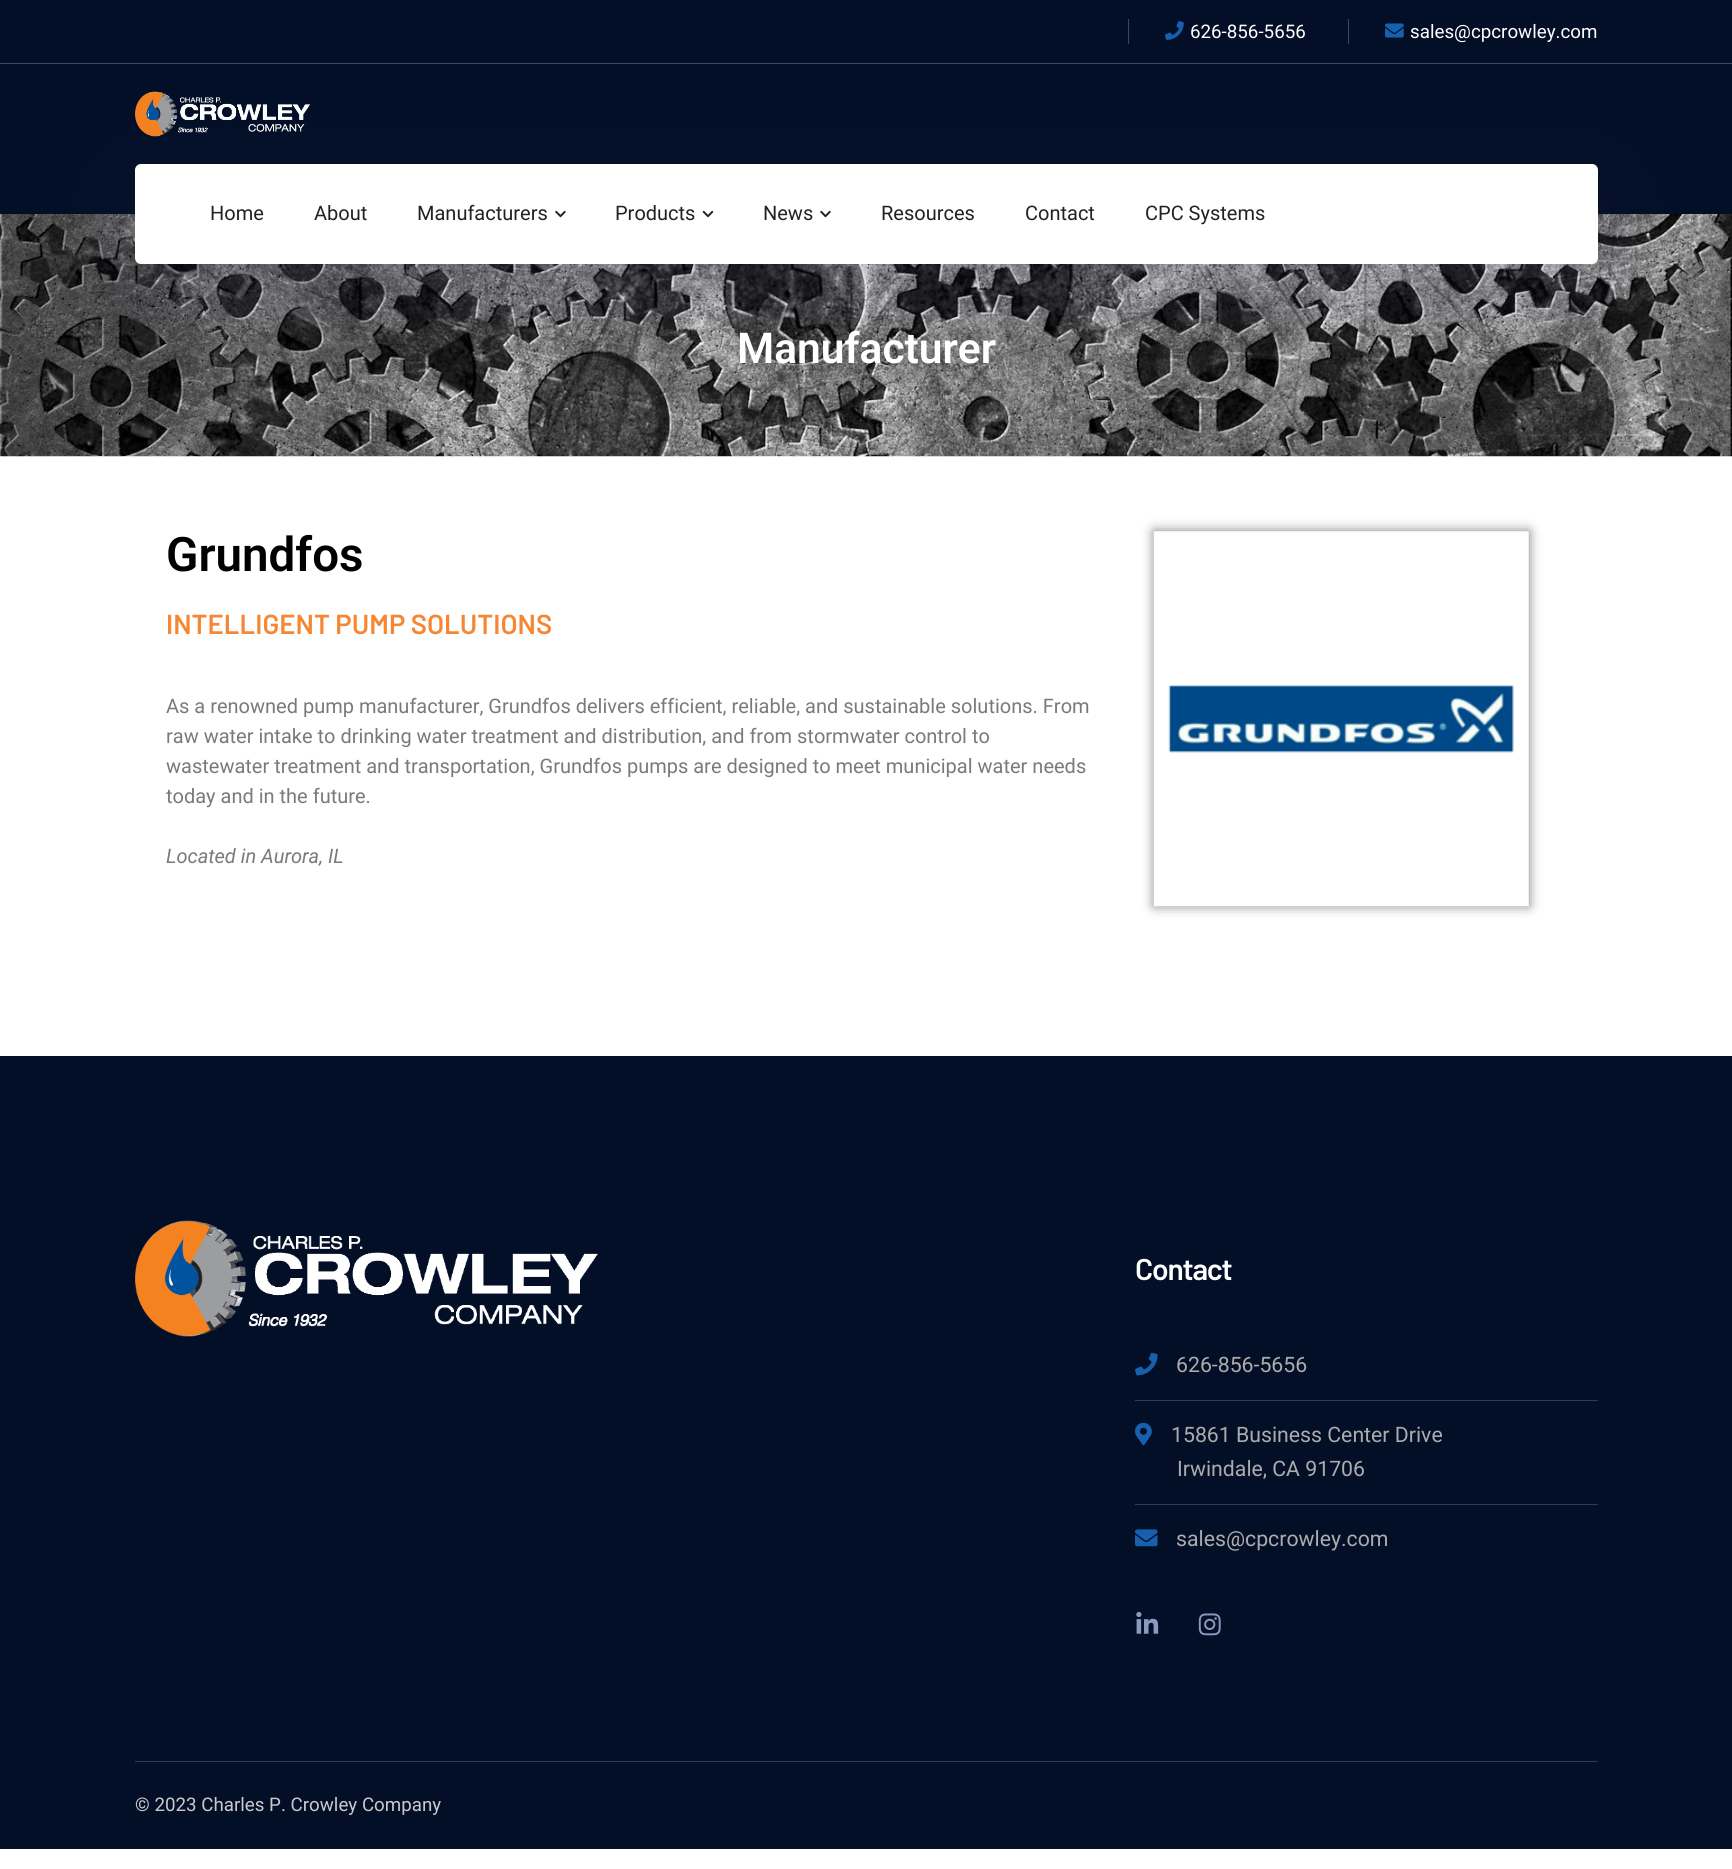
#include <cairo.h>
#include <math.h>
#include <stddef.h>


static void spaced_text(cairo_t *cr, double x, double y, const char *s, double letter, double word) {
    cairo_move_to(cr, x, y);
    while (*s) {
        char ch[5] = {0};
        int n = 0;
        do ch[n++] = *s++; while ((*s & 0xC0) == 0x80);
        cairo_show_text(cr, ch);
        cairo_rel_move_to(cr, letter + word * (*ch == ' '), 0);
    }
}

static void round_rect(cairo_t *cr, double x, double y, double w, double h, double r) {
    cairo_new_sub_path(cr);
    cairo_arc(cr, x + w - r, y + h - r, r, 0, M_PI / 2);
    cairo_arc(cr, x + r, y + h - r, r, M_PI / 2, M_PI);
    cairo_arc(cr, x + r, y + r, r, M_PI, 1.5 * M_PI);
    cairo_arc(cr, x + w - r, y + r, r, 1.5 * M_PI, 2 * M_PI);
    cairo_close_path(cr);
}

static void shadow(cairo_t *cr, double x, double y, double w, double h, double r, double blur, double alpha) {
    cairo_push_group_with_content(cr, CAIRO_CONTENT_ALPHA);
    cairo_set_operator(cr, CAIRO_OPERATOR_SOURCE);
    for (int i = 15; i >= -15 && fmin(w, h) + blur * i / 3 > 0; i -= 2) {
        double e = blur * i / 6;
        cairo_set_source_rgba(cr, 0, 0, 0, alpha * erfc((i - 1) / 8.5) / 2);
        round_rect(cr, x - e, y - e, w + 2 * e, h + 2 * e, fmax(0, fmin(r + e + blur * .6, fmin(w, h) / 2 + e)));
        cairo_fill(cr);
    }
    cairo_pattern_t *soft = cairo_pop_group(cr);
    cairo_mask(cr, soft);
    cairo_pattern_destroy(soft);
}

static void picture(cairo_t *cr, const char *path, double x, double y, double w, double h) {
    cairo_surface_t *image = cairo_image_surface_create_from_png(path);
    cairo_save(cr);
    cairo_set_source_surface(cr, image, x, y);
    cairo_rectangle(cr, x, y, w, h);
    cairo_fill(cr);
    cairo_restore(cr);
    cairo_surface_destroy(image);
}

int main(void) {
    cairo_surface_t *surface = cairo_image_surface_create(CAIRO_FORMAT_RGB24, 1732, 1869);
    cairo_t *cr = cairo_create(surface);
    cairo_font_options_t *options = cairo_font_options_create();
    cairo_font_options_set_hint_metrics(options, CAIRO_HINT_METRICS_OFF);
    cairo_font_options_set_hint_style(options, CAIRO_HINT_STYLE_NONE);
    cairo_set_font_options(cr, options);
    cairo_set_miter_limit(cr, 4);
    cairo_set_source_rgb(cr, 1, 1, 1);
    cairo_paint(cr);
    cairo_set_source_rgb(cr, 0.012, 0.059, 0.153);
    cairo_rectangle(cr, 0, 0, 1732, 214);
    cairo_fill(cr);
    cairo_set_source_rgb(cr, 0.224, 0.275, 0.392);
    cairo_rectangle(cr, 0, 63, 1732, 1);
    cairo_fill(cr);
    cairo_rectangle(cr, 1128, 19, 1, 25);
    cairo_fill(cr);
    picture(cr, "img1.png", 1165, 21, 19, 19);
    cairo_select_font_face(cr, "Roboto", CAIRO_FONT_SLANT_NORMAL, CAIRO_FONT_WEIGHT_NORMAL);
    cairo_set_font_size(cr, 18.75);
    cairo_set_source_rgb(cr, 1, 1, 1);
    cairo_move_to(cr, 1190, 38);
    cairo_show_text(cr, "626-856-5656");
    cairo_set_source_rgb(cr, 0.224, 0.275, 0.392);
    cairo_rectangle(cr, 1348, 19, 1, 25);
    cairo_fill(cr);
    picture(cr, "img2.png", 1385, 23, 19, 15);
    cairo_set_source_rgb(cr, 1, 1, 1);
    cairo_move_to(cr, 1410, 38);
    cairo_show_text(cr, "sales@cpcrowley.com");
    picture(cr, "img3.png", 135, 91, 175, 46);
    picture(cr, "img6.png", 0, 214, 1732, 243);
    cairo_set_source_rgb(cr, 0.149, 0.165, 0.298);
    shadow(cr, 135, 189, 1463, 100, 6, 44, 0.2);
    cairo_set_source_rgb(cr, 1, 1, 1);
    round_rect(cr, 135, 164, 1463, 100, 6);
    cairo_fill(cr);
    cairo_set_font_size(cr, 20);
    cairo_set_source_rgb(cr, 0.133, 0.133, 0.133);
    cairo_move_to(cr, 210, 220);
    cairo_show_text(cr, "Home");
    cairo_move_to(cr, 314, 220);
    cairo_show_text(cr, "About");
    cairo_move_to(cr, 417, 220);
    cairo_show_text(cr, "Manufacturers");
    picture(cr, "img4.png", 555, 210, 11, 8);
    cairo_move_to(cr, 615, 220);
    cairo_show_text(cr, "Products");
    picture(cr, "img5.png", 702, 210, 12, 8);
    cairo_move_to(cr, 763, 220);
    cairo_show_text(cr, "News");
    picture(cr, "img4.png", 820, 210, 11, 8);
    cairo_move_to(cr, 881, 220);
    cairo_show_text(cr, "Resources");
    cairo_move_to(cr, 1025, 220);
    cairo_show_text(cr, "Contact");
    cairo_move_to(cr, 1145, 220);
    cairo_show_text(cr, "CPC Systems");
    cairo_select_font_face(cr, "Roboto SemiBold", CAIRO_FONT_SLANT_NORMAL, CAIRO_FONT_WEIGHT_NORMAL);
    cairo_set_font_size(cr, 42.5);
    cairo_set_source_rgb(cr, 1, 1, 1);
    cairo_move_to(cr, 737, 363);
    cairo_show_text(cr, "Manufacturer");
    cairo_set_font_size(cr, 47.5);
    cairo_set_source_rgb(cr, 0, 0, 0);
    cairo_move_to(cr, 166, 571);
    cairo_show_text(cr, "Grundfos");
    cairo_select_font_face(cr, "Barlow SemiBold", CAIRO_FONT_SLANT_NORMAL, CAIRO_FONT_WEIGHT_NORMAL);
    cairo_set_font_size(cr, 27.5);
    cairo_set_source_rgb(cr, 0.961, 0.525, 0.204);
    cairo_move_to(cr, 166, 634);
    cairo_show_text(cr, "INTELLIGENT PUMP SOLUTIONS");
    cairo_select_font_face(cr, "Roboto", CAIRO_FONT_SLANT_NORMAL, CAIRO_FONT_WEIGHT_NORMAL);
    cairo_set_font_size(cr, 20);
    cairo_set_source_rgb(cr, 0.478, 0.478, 0.478);
    cairo_move_to(cr, 166, 713);
    cairo_show_text(cr, "As a renowned pump manufacturer, Grundfos delivers efficient, reliable, and sustainable solutions. From");
    cairo_move_to(cr, 166, 743);
    cairo_show_text(cr, "raw water intake to drinking water treatment and distribution, and from stormwater control to");
    cairo_move_to(cr, 166, 773);
    cairo_show_text(cr, "wastewater treatment and transportation, Grundfos pumps are designed to meet municipal water needs");
    cairo_move_to(cr, 166, 803);
    cairo_show_text(cr, "today and in the future.");
    cairo_select_font_face(cr, "Roboto", CAIRO_FONT_SLANT_ITALIC, CAIRO_FONT_WEIGHT_NORMAL);
    cairo_move_to(cr, 166, 863);
    cairo_show_text(cr, "Located in Aurora, IL");
    cairo_set_source_rgb(cr, 0, 0, 0);
    shadow(cr, 1154, 531, 375, 375, 0, 6, 0.5);
    picture(cr, "img7.png", 1153, 531, 376, 376);
    cairo_set_source_rgb(cr, 0.012, 0.059, 0.153);
    cairo_rectangle(cr, 0, 1056, 1732, 793);
    cairo_fill(cr);
    picture(cr, "img8.png", 135, 1220, 463, 117);
    cairo_select_font_face(cr, "Barlow SemiBold", CAIRO_FONT_SLANT_NORMAL, CAIRO_FONT_WEIGHT_NORMAL);
    cairo_set_font_size(cr, 30);
    cairo_set_source_rgb(cr, 1, 1, 1);
    spaced_text(cr, 1135, 1280, "Contact", -1.25, 0);
    cairo_set_source_rgb(cr, 0.184, 0.231, 0.314);
    cairo_rectangle(cr, 1135, 1400, 463, 1);
    cairo_fill(cr);
    picture(cr, "img9.png", 1135, 1352, 23, 24);
    cairo_select_font_face(cr, "Roboto", CAIRO_FONT_SLANT_NORMAL, CAIRO_FONT_WEIGHT_NORMAL);
    cairo_set_font_size(cr, 21.25);
    cairo_set_source_rgb(cr, 0.675, 0.675, 0.675);
    cairo_move_to(cr, 1176, 1372);
    cairo_show_text(cr, "626-856-5656");
    cairo_set_source_rgb(cr, 0.184, 0.231, 0.314);
    cairo_rectangle(cr, 1135, 1504, 463, 1);
    cairo_fill(cr);
    picture(cr, "img10.png", 1135, 1422, 17, 24);
    cairo_set_source_rgb(cr, 0.675, 0.675, 0.675);
    cairo_move_to(cr, 1171, 1442);
    cairo_show_text(cr, "15861 Business Center Drive");
    cairo_move_to(cr, 1177, 1476);
    cairo_show_text(cr, "Irwindale, CA 91706");
    picture(cr, "img11.png", 1135, 1529, 23, 18);
    cairo_move_to(cr, 1176, 1546);
    cairo_show_text(cr, "sales@cpcrowley.com");
    picture(cr, "img12.png", 1136, 1611, 23, 23);
    picture(cr, "img13.png", 1198, 1613, 23, 23);
    cairo_set_source_rgb(cr, 0.184, 0.231, 0.314);
    cairo_rectangle(cr, 135, 1761, 1463, 1);
    cairo_fill(cr);
    cairo_set_font_size(cr, 18.75);
    cairo_set_source_rgb(cr, 0.792, 0.792, 0.792);
    cairo_move_to(cr, 135, 1811);
    cairo_show_text(cr, "© 2023 Charles P. Crowley Company");
    cairo_surface_write_to_png(surface, "page.png");
    cairo_font_options_destroy(options);
    cairo_destroy(cr);
    cairo_surface_destroy(surface);
    return 0;
}
